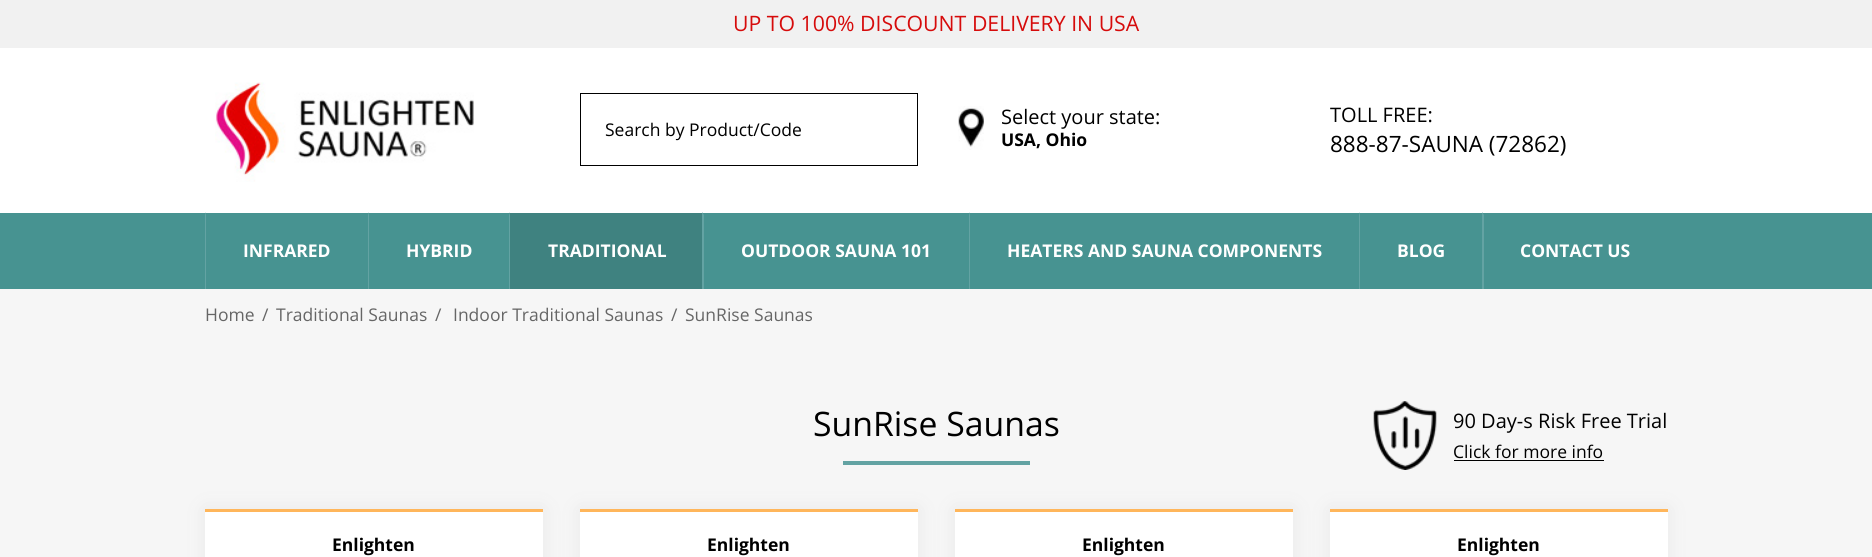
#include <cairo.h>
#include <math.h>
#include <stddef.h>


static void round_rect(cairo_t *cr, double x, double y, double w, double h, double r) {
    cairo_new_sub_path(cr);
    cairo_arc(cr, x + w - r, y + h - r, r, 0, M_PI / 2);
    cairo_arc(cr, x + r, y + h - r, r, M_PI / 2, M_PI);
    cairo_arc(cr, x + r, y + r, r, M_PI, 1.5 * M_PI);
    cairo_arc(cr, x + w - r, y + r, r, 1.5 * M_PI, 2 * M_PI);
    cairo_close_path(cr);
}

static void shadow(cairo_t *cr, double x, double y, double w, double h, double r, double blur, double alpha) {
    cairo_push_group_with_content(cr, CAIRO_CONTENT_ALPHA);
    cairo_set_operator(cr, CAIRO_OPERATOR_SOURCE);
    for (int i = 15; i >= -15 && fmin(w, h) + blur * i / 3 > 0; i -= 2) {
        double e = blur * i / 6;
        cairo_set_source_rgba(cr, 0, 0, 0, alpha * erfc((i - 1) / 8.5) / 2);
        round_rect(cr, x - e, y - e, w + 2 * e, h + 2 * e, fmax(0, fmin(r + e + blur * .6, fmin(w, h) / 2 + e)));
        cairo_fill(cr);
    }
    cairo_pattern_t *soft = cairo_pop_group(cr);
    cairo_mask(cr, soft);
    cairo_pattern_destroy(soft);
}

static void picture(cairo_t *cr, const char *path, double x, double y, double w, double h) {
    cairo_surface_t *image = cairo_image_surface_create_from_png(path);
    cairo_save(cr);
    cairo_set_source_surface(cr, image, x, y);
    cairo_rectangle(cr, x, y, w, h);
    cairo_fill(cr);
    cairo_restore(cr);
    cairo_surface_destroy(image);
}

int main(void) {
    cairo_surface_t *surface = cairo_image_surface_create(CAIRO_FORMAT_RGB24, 1872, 557);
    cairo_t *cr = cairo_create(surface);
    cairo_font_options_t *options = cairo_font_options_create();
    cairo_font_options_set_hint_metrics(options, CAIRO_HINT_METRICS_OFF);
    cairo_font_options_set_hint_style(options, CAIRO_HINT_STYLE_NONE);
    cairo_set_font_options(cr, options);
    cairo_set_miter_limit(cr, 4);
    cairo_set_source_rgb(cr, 1, 1, 1);
    cairo_paint(cr);
    cairo_set_source_rgb(cr, 0.945, 0.945, 0.945);
    cairo_rectangle(cr, 0, 0, 1872, 48);
    cairo_fill(cr);
    cairo_select_font_face(cr, "Open Sans", CAIRO_FONT_SLANT_NORMAL, CAIRO_FONT_WEIGHT_NORMAL);
    cairo_set_font_size(cr, 21.25);
    cairo_set_source_rgb(cr, 0.839, 0.043, 0.043);
    cairo_move_to(cr, 733, 31);
    cairo_show_text(cr, "UP TO 100% DISCOUNT DELIVERY IN USA");
    picture(cr, "img1.png", 215, 82, 259, 100);
    cairo_rectangle(cr, 580.5, 93.5, 337, 72);
    cairo_set_source_rgb(cr, 0, 0, 0);
    cairo_set_line_width(cr, 1);
    cairo_stroke(cr);
    cairo_set_font_size(cr, 17.5);
    cairo_move_to(cr, 605, 136);
    cairo_show_text(cr, "Search by Product/Code");
    picture(cr, "img2.png", 958, 106, 26, 44);
    cairo_set_font_size(cr, 20);
    cairo_move_to(cr, 1001, 124);
    cairo_show_text(cr, "Select your state:");
    cairo_select_font_face(cr, "Open Sans", CAIRO_FONT_SLANT_NORMAL, CAIRO_FONT_WEIGHT_BOLD);
    cairo_set_font_size(cr, 17.5);
    cairo_move_to(cr, 1001, 146);
    cairo_show_text(cr, "USA, Ohio");
    cairo_select_font_face(cr, "Open Sans", CAIRO_FONT_SLANT_NORMAL, CAIRO_FONT_WEIGHT_NORMAL);
    cairo_set_font_size(cr, 20);
    cairo_move_to(cr, 1330, 122);
    cairo_show_text(cr, "TOLL FREE:");
    cairo_set_font_size(cr, 22.5);
    cairo_move_to(cr, 1330, 152);
    cairo_show_text(cr, "888-87-SAUNA (72862)");
    cairo_set_source_rgb(cr, 0.278, 0.576, 0.569);
    cairo_rectangle(cr, 0, 213, 1872, 76);
    cairo_fill(cr);
    cairo_set_source_rgb(cr, 0.388, 0.639, 0.639);
    cairo_new_path(cr);
    cairo_move_to(cr, 205, 289);
    cairo_line_to(cr, 205, 212);
    cairo_line_to(cr, 206, 215);
    cairo_line_to(cr, 206, 289);
    cairo_close_path(cr);
    cairo_fill(cr);
    cairo_select_font_face(cr, "Open Sans", CAIRO_FONT_SLANT_NORMAL, CAIRO_FONT_WEIGHT_BOLD);
    cairo_set_font_size(cr, 17.5);
    cairo_set_source_rgb(cr, 1, 1, 1);
    cairo_move_to(cr, 243, 257);
    cairo_show_text(cr, "INFRARED");
    cairo_set_source_rgb(cr, 0.388, 0.639, 0.639);
    cairo_new_path(cr);
    cairo_move_to(cr, 368, 289);
    cairo_line_to(cr, 368, 212);
    cairo_line_to(cr, 369, 215);
    cairo_line_to(cr, 369, 289);
    cairo_close_path(cr);
    cairo_fill(cr);
    cairo_set_source_rgb(cr, 1, 1, 1);
    cairo_move_to(cr, 406, 257);
    cairo_show_text(cr, "HYBRID");
    cairo_set_source_rgb(cr, 0.247, 0.51, 0.502);
    cairo_rectangle(cr, 509, 213, 194, 76);
    cairo_fill(cr);
    cairo_set_source_rgb(cr, 0.388, 0.639, 0.639);
    cairo_new_path(cr);
    cairo_move_to(cr, 509, 289);
    cairo_line_to(cr, 509, 212);
    cairo_line_to(cr, 510, 215);
    cairo_line_to(cr, 510, 289);
    cairo_close_path(cr);
    cairo_fill(cr);
    cairo_set_source_rgb(cr, 1, 1, 1);
    cairo_move_to(cr, 548, 257);
    cairo_show_text(cr, "TRADITIONAL");
    cairo_set_source_rgb(cr, 0.388, 0.639, 0.639);
    cairo_new_path(cr);
    cairo_move_to(cr, 702, 289);
    cairo_line_to(cr, 702, 212);
    cairo_line_to(cr, 704, 215);
    cairo_line_to(cr, 704, 289);
    cairo_close_path(cr);
    cairo_fill(cr);
    cairo_set_source_rgb(cr, 1, 1, 1);
    cairo_move_to(cr, 741, 257);
    cairo_show_text(cr, "OUTDOOR SAUNA 101");
    cairo_set_source_rgb(cr, 0.388, 0.639, 0.639);
    cairo_new_path(cr);
    cairo_move_to(cr, 969, 289);
    cairo_line_to(cr, 969, 212);
    cairo_line_to(cr, 970, 215);
    cairo_line_to(cr, 970, 289);
    cairo_close_path(cr);
    cairo_fill(cr);
    cairo_set_source_rgb(cr, 1, 1, 1);
    cairo_move_to(cr, 1007, 257);
    cairo_show_text(cr, "HEATERS AND SAUNA COMPONENTS");
    cairo_set_source_rgb(cr, 0.388, 0.639, 0.639);
    cairo_new_path(cr);
    cairo_move_to(cr, 1359, 289);
    cairo_line_to(cr, 1359, 212);
    cairo_line_to(cr, 1360, 215);
    cairo_line_to(cr, 1360, 289);
    cairo_close_path(cr);
    cairo_fill(cr);
    cairo_set_source_rgb(cr, 1, 1, 1);
    cairo_move_to(cr, 1397, 257);
    cairo_show_text(cr, "BLOG");
    cairo_set_source_rgb(cr, 0.388, 0.639, 0.639);
    cairo_new_path(cr);
    cairo_move_to(cr, 1482, 289);
    cairo_line_to(cr, 1482, 212);
    cairo_line_to(cr, 1484, 215);
    cairo_line_to(cr, 1484, 289);
    cairo_close_path(cr);
    cairo_fill(cr);
    cairo_set_source_rgb(cr, 1, 1, 1);
    cairo_move_to(cr, 1520, 257);
    cairo_show_text(cr, "CONTACT US");
    cairo_set_source_rgb(cr, 0.961, 0.961, 0.961);
    cairo_rectangle(cr, 0, 289, 1872, 268);
    cairo_fill(cr);
    cairo_select_font_face(cr, "Open Sans", CAIRO_FONT_SLANT_NORMAL, CAIRO_FONT_WEIGHT_NORMAL);
    cairo_set_source_rgb(cr, 0.4, 0.4, 0.4);
    cairo_move_to(cr, 205, 321);
    cairo_show_text(cr, "Home");
    cairo_move_to(cr, 262, 321);
    cairo_show_text(cr, "/");
    cairo_move_to(cr, 276, 321);
    cairo_show_text(cr, "Traditional Saunas");
    cairo_move_to(cr, 435, 321);
    cairo_show_text(cr, "/");
    cairo_move_to(cr, 453, 321);
    cairo_show_text(cr, "Indoor Traditional Saunas");
    cairo_move_to(cr, 671, 321);
    cairo_show_text(cr, "/");
    cairo_move_to(cr, 685, 321);
    cairo_show_text(cr, "SunRise Saunas");
    cairo_set_font_size(cr, 33.75);
    cairo_set_source_rgb(cr, 0, 0, 0);
    cairo_move_to(cr, 813, 436);
    cairo_show_text(cr, "SunRise Saunas");
    cairo_set_source_rgb(cr, 0.388, 0.639, 0.639);
    cairo_rectangle(cr, 843, 461, 187, 4);
    cairo_fill(cr);
    cairo_set_source_rgb(cr, 0.914, 0.914, 0.914);
    shadow(cr, 205, 509, 338, 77, 0, 9.5, 1);
    cairo_set_source_rgb(cr, 1, 1, 1);
    cairo_rectangle(cr, 205, 512, 338, 45);
    cairo_fill(cr);
    cairo_set_source_rgb(cr, 1, 0.714, 0.357);
    cairo_rectangle(cr, 205, 509, 338, 3);
    cairo_fill(cr);
    cairo_select_font_face(cr, "Open Sans", CAIRO_FONT_SLANT_NORMAL, CAIRO_FONT_WEIGHT_BOLD);
    cairo_set_font_size(cr, 17.5);
    cairo_set_source_rgb(cr, 0, 0, 0);
    cairo_move_to(cr, 332, 551);
    cairo_show_text(cr, "Enlighten");
    cairo_set_source_rgb(cr, 0.914, 0.914, 0.914);
    shadow(cr, 580, 509, 338, 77, 0, 9.5, 1);
    cairo_set_source_rgb(cr, 1, 1, 1);
    cairo_rectangle(cr, 580, 512, 338, 45);
    cairo_fill(cr);
    cairo_set_source_rgb(cr, 1, 0.714, 0.357);
    cairo_rectangle(cr, 580, 509, 338, 3);
    cairo_fill(cr);
    cairo_set_source_rgb(cr, 0, 0, 0);
    cairo_move_to(cr, 707, 551);
    cairo_show_text(cr, "Enlighten");
    cairo_set_source_rgb(cr, 0.914, 0.914, 0.914);
    shadow(cr, 955, 509, 338, 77, 0, 9.5, 1);
    cairo_set_source_rgb(cr, 1, 1, 1);
    cairo_rectangle(cr, 955, 512, 338, 45);
    cairo_fill(cr);
    cairo_set_source_rgb(cr, 1, 0.714, 0.357);
    cairo_rectangle(cr, 955, 509, 338, 3);
    cairo_fill(cr);
    cairo_set_source_rgb(cr, 0, 0, 0);
    cairo_move_to(cr, 1082, 551);
    cairo_show_text(cr, "Enlighten");
    cairo_set_source_rgb(cr, 0.914, 0.914, 0.914);
    shadow(cr, 1330, 509, 338, 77, 0, 9.5, 1);
    cairo_set_source_rgb(cr, 1, 1, 1);
    cairo_rectangle(cr, 1330, 512, 338, 45);
    cairo_fill(cr);
    cairo_set_source_rgb(cr, 1, 0.714, 0.357);
    cairo_rectangle(cr, 1330, 509, 338, 3);
    cairo_fill(cr);
    cairo_set_source_rgb(cr, 0, 0, 0);
    cairo_move_to(cr, 1457, 551);
    cairo_show_text(cr, "Enlighten");
    picture(cr, "img3.png", 1373, 401, 64, 69);
    cairo_select_font_face(cr, "Open Sans", CAIRO_FONT_SLANT_NORMAL, CAIRO_FONT_WEIGHT_NORMAL);
    cairo_set_font_size(cr, 20);
    cairo_move_to(cr, 1453, 428);
    cairo_show_text(cr, "90 Day-s Risk Free Trial");
    cairo_set_font_size(cr, 17.5);
    cairo_move_to(cr, 1453, 458);
    cairo_show_text(cr, "Click for more info");
    cairo_rectangle(cr, 1454, 460, 150, 1);
    cairo_fill(cr);
    cairo_surface_write_to_png(surface, "page.png");
    cairo_font_options_destroy(options);
    cairo_destroy(cr);
    cairo_surface_destroy(surface);
    return 0;
}
